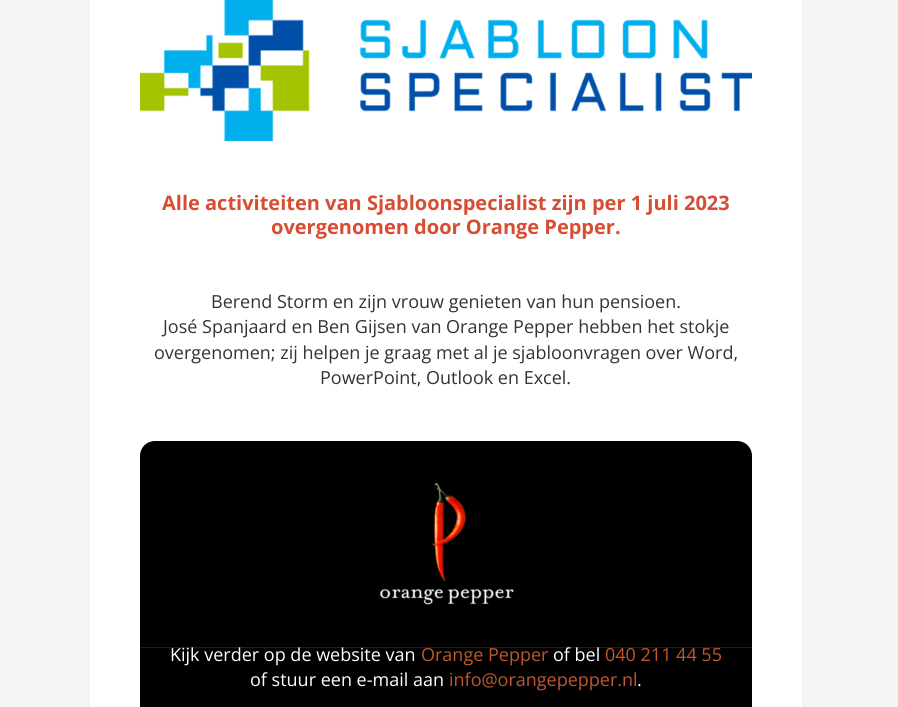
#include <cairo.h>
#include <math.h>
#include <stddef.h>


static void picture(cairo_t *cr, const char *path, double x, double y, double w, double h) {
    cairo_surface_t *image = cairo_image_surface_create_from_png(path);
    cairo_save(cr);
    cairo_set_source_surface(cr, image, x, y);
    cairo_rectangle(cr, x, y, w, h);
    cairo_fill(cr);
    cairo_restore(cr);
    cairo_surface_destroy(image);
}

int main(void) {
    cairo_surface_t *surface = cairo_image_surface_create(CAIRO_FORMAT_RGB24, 898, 707);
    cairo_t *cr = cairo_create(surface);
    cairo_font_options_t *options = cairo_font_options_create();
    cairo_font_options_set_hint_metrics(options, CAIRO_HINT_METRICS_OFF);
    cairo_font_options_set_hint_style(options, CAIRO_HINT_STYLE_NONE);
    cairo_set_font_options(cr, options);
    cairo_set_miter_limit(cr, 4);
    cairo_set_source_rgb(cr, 0.957, 0.957, 0.957);
    cairo_paint(cr);
    cairo_set_source_rgb(cr, 1, 1, 1);
    cairo_rectangle(cr, 90, 0, 712, 707);
    cairo_fill(cr);
    picture(cr, "img1.png", 140, 0, 612, 141);
    cairo_select_font_face(cr, "Open Sans", CAIRO_FONT_SLANT_NORMAL, CAIRO_FONT_WEIGHT_BOLD);
    cairo_set_font_size(cr, 20);
    cairo_set_source_rgb(cr, 0.847, 0.302, 0.192);
    cairo_move_to(cr, 162, 210);
    cairo_show_text(cr, "Alle activiteiten van Sjabloonspecialist zijn per 1 juli 2023");
    cairo_move_to(cr, 271, 234);
    cairo_show_text(cr, "overgenomen door Orange Pepper.");
    cairo_select_font_face(cr, "Open Sans", CAIRO_FONT_SLANT_NORMAL, CAIRO_FONT_WEIGHT_NORMAL);
    cairo_set_font_size(cr, 18);
    cairo_set_source_rgb(cr, 0.2, 0.2, 0.2);
    cairo_move_to(cr, 211, 308);
    cairo_show_text(cr, "Berend Storm en zijn vrouw genieten van hun pensioen.");
    cairo_move_to(cr, 163, 333);
    cairo_show_text(cr, "José Spanjaard en Ben Gijsen van Orange Pepper hebben het stokje");
    cairo_move_to(cr, 154, 359);
    cairo_show_text(cr, "overgenomen; zij helpen je graag met al je sjabloonvragen over Word,");
    cairo_move_to(cr, 320, 384);
    cairo_show_text(cr, "PowerPoint, Outlook en Excel.");
    cairo_set_source_rgb(cr, 0, 0, 0);
    cairo_new_path(cr);
    cairo_move_to(cr, 155, 441);
    cairo_line_to(cr, 737, 441);
    cairo_curve_to(cr, 745.5, 441, 752, 447.5, 752, 456);
    cairo_line_to(cr, 752, 707);
    cairo_line_to(cr, 140, 707);
    cairo_line_to(cr, 140, 456);
    cairo_curve_to(cr, 140, 447.5, 146.5, 441, 155, 441);
    cairo_close_path(cr);
    cairo_fill(cr);
    picture(cr, "img2.png", 379, 482, 135, 123);
    cairo_set_source_rgb(cr, 1, 1, 1);
    cairo_move_to(cr, 170, 661);
    cairo_show_text(cr, "Kijk verder op de website van");
    cairo_set_source_rgb(cr, 0.749, 0.345, 0.169);
    cairo_move_to(cr, 421, 661);
    cairo_show_text(cr, "Orange Pepper");
    cairo_set_source_rgb(cr, 1, 1, 1);
    cairo_move_to(cr, 553, 661);
    cairo_show_text(cr, "of bel");
    cairo_set_source_rgb(cr, 0.749, 0.345, 0.169);
    cairo_move_to(cr, 605, 661);
    cairo_show_text(cr, "040 211 44 55");
    cairo_set_source_rgb(cr, 1, 1, 1);
    cairo_move_to(cr, 250, 686);
    cairo_show_text(cr, "of stuur een e-mail aan");
    cairo_set_source_rgb(cr, 0.749, 0.345, 0.169);
    cairo_move_to(cr, 449, 686);
    cairo_show_text(cr, "info@orangepepper.nl");
    cairo_set_source_rgb(cr, 1, 1, 1);
    cairo_move_to(cr, 637, 686);
    cairo_show_text(cr, ".");
    cairo_set_source_rgba(cr, 1, 1, 1, 0.12);
    cairo_rectangle(cr, 140, 647, 612, 1);
    cairo_fill(cr);
    cairo_surface_write_to_png(surface, "page.png");
    cairo_font_options_destroy(options);
    cairo_destroy(cr);
    cairo_surface_destroy(surface);
    return 0;
}
